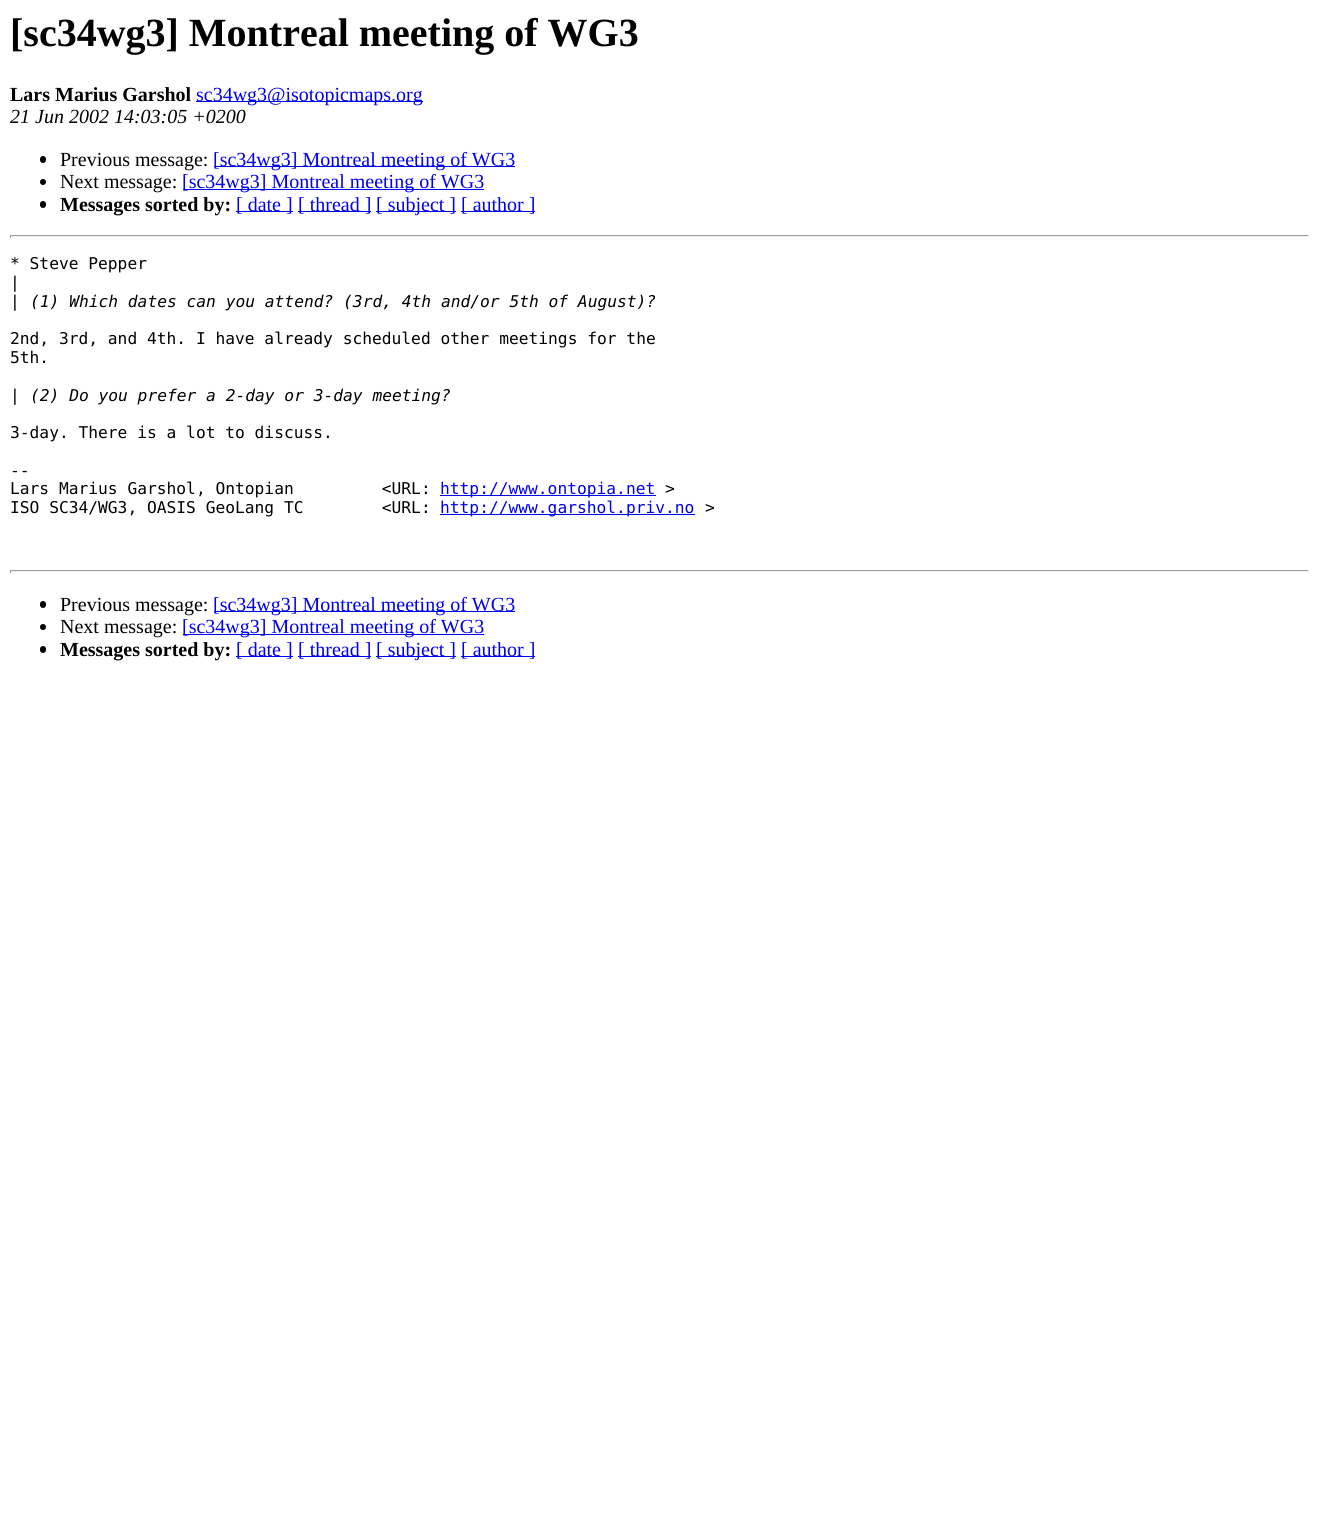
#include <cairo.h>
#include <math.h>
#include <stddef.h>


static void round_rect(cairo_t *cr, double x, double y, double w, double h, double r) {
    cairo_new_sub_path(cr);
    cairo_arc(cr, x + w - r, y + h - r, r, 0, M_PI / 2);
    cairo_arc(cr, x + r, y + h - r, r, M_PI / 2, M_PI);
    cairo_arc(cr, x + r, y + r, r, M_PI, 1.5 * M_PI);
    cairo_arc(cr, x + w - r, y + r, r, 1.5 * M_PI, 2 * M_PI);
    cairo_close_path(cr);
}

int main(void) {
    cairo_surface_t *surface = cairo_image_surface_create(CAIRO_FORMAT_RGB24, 1318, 1540);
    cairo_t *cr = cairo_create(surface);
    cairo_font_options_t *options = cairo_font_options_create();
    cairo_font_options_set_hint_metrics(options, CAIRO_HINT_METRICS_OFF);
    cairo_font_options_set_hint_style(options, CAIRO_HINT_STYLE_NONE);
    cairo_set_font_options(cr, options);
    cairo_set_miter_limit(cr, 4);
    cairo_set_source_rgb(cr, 1, 1, 1);
    cairo_paint(cr);
    cairo_select_font_face(cr, "Liberation Serif", CAIRO_FONT_SLANT_NORMAL, CAIRO_FONT_WEIGHT_BOLD);
    cairo_set_font_size(cr, 40);
    cairo_set_source_rgb(cr, 0, 0, 0);
    cairo_move_to(cr, 10, 46);
    cairo_show_text(cr, "[sc34wg3] Montreal meeting of WG3");
    cairo_set_font_size(cr, 20);
    cairo_move_to(cr, 10, 101);
    cairo_show_text(cr, "Lars Marius Garshol");
    cairo_set_source_rgb(cr, 0, 0, 0.933);
    cairo_rectangle(cr, 196, 101, 227, 1);
    cairo_fill(cr);
    cairo_select_font_face(cr, "Liberation Serif", CAIRO_FONT_SLANT_NORMAL, CAIRO_FONT_WEIGHT_NORMAL);
    cairo_move_to(cr, 196, 101);
    cairo_show_text(cr, "sc34wg3@isotopicmaps.org");
    cairo_select_font_face(cr, "Liberation Serif", CAIRO_FONT_SLANT_ITALIC, CAIRO_FONT_WEIGHT_NORMAL);
    cairo_set_source_rgb(cr, 0, 0, 0);
    cairo_move_to(cr, 10, 123);
    cairo_show_text(cr, "21 Jun 2002 14:03:05 +0200");
    round_rect(cr, 40, 156, 6, 7, 3);
    cairo_fill(cr);
    cairo_select_font_face(cr, "Liberation Serif", CAIRO_FONT_SLANT_NORMAL, CAIRO_FONT_WEIGHT_NORMAL);
    cairo_move_to(cr, 60, 166);
    cairo_show_text(cr, "Previous message:");
    cairo_set_source_rgb(cr, 0, 0, 0.933);
    cairo_rectangle(cr, 214, 166, 301, 1);
    cairo_fill(cr);
    cairo_move_to(cr, 213, 166);
    cairo_show_text(cr, "[sc34wg3] Montreal meeting of WG3");
    cairo_set_source_rgb(cr, 0, 0, 0);
    cairo_new_path(cr);
    cairo_arc(cr, 43, 182, 3, 0, 2 * M_PI);
    cairo_fill(cr);
    cairo_move_to(cr, 60, 188);
    cairo_show_text(cr, "Next message:");
    cairo_set_source_rgb(cr, 0, 0, 0.933);
    cairo_rectangle(cr, 183, 189, 301, 1);
    cairo_fill(cr);
    cairo_move_to(cr, 182, 188);
    cairo_show_text(cr, "[sc34wg3] Montreal meeting of WG3");
    cairo_set_source_rgb(cr, 0, 0, 0);
    round_rect(cr, 40, 201, 6, 7, 3);
    cairo_fill(cr);
    cairo_select_font_face(cr, "Liberation Serif", CAIRO_FONT_SLANT_NORMAL, CAIRO_FONT_WEIGHT_BOLD);
    cairo_move_to(cr, 60, 211);
    cairo_show_text(cr, "Messages sorted by:");
    cairo_set_source_rgb(cr, 0, 0, 0.933);
    cairo_rectangle(cr, 236, 211, 57, 1);
    cairo_fill(cr);
    cairo_select_font_face(cr, "Liberation Serif", CAIRO_FONT_SLANT_NORMAL, CAIRO_FONT_WEIGHT_NORMAL);
    cairo_move_to(cr, 236, 211);
    cairo_show_text(cr, "[ date ]");
    cairo_rectangle(cr, 298, 211, 73, 1);
    cairo_fill(cr);
    cairo_move_to(cr, 298, 211);
    cairo_show_text(cr, "[ thread ]");
    cairo_rectangle(cr, 376, 211, 80, 1);
    cairo_fill(cr);
    cairo_move_to(cr, 376, 211);
    cairo_show_text(cr, "[ subject ]");
    cairo_rectangle(cr, 461, 211, 74, 1);
    cairo_fill(cr);
    cairo_move_to(cr, 461, 211);
    cairo_show_text(cr, "[ author ]");
    cairo_set_source_rgb(cr, 0.624, 0.624, 0.624);
    cairo_rectangle(cr, 10, 235, 1299, 1);
    cairo_fill(cr);
    cairo_set_source_rgb(cr, 0.933, 0.933, 0.933);
    cairo_rectangle(cr, 1308, 235, 1, 3);
    cairo_fill(cr);
    cairo_rectangle(cr, 10, 236, 1299, 1);
    cairo_fill(cr);
    cairo_set_source_rgb(cr, 0.624, 0.624, 0.624);
    cairo_rectangle(cr, 10, 235, 1, 3);
    cairo_fill(cr);
    cairo_select_font_face(cr, "DejaVu Sans Mono", CAIRO_FONT_SLANT_NORMAL, CAIRO_FONT_WEIGHT_NORMAL);
    cairo_set_font_size(cr, 16.25);
    cairo_set_source_rgb(cr, 0, 0, 0);
    cairo_move_to(cr, 10, 269);
    cairo_show_text(cr, "* Steve Pepper");
    cairo_move_to(cr, 10, 288);
    cairo_show_text(cr, "|");
    cairo_move_to(cr, 10, 307);
    cairo_show_text(cr, "|");
    cairo_select_font_face(cr, "DejaVu Sans Mono", CAIRO_FONT_SLANT_ITALIC, CAIRO_FONT_WEIGHT_NORMAL);
    cairo_move_to(cr, 30, 307);
    cairo_show_text(cr, "(1) Which dates can you attend? (3rd, 4th and/or 5th of August)?");
    cairo_select_font_face(cr, "DejaVu Sans Mono", CAIRO_FONT_SLANT_NORMAL, CAIRO_FONT_WEIGHT_NORMAL);
    cairo_move_to(cr, 10, 344);
    cairo_show_text(cr, "2nd, 3rd, and 4th. I have already scheduled other meetings for the");
    cairo_move_to(cr, 10, 363);
    cairo_show_text(cr, "5th.");
    cairo_move_to(cr, 10, 401);
    cairo_show_text(cr, "|");
    cairo_select_font_face(cr, "DejaVu Sans Mono", CAIRO_FONT_SLANT_ITALIC, CAIRO_FONT_WEIGHT_NORMAL);
    cairo_move_to(cr, 30, 401);
    cairo_show_text(cr, "(2) Do you prefer a 2-day or 3-day meeting?");
    cairo_select_font_face(cr, "DejaVu Sans Mono", CAIRO_FONT_SLANT_NORMAL, CAIRO_FONT_WEIGHT_NORMAL);
    cairo_move_to(cr, 10, 438);
    cairo_show_text(cr, "3-day. There is a lot to discuss.");
    cairo_move_to(cr, 10, 476);
    cairo_show_text(cr, "--");
    cairo_move_to(cr, 10, 494);
    cairo_show_text(cr, "Lars Marius Garshol, Ontopian         <URL:");
    cairo_set_source_rgb(cr, 0, 0, 0.933);
    cairo_rectangle(cr, 440, 495, 216, 1);
    cairo_fill(cr);
    cairo_move_to(cr, 440, 494);
    cairo_show_text(cr, "http://www.ontopia.net");
    cairo_set_source_rgb(cr, 0, 0, 0);
    cairo_move_to(cr, 665, 494);
    cairo_show_text(cr, ">");
    cairo_move_to(cr, 10, 513);
    cairo_show_text(cr, "ISO SC34/WG3, OASIS GeoLang TC        <URL:");
    cairo_set_source_rgb(cr, 0, 0, 0.933);
    cairo_rectangle(cr, 440, 514, 255, 1);
    cairo_fill(cr);
    cairo_move_to(cr, 440, 513);
    cairo_show_text(cr, "http://www.garshol.priv.no");
    cairo_set_source_rgb(cr, 0, 0, 0);
    cairo_move_to(cr, 705, 513);
    cairo_show_text(cr, ">");
    cairo_set_source_rgb(cr, 0.624, 0.624, 0.624);
    cairo_rectangle(cr, 10, 570, 1299, 1);
    cairo_fill(cr);
    cairo_set_source_rgb(cr, 0.933, 0.933, 0.933);
    cairo_rectangle(cr, 1308, 570, 1, 3);
    cairo_fill(cr);
    cairo_rectangle(cr, 10, 571, 1299, 1);
    cairo_fill(cr);
    cairo_set_source_rgb(cr, 0.624, 0.624, 0.624);
    cairo_rectangle(cr, 10, 570, 1, 3);
    cairo_fill(cr);
    cairo_set_source_rgb(cr, 0, 0, 0);
    round_rect(cr, 40, 601, 6, 7, 3);
    cairo_fill(cr);
    cairo_select_font_face(cr, "Liberation Serif", CAIRO_FONT_SLANT_NORMAL, CAIRO_FONT_WEIGHT_NORMAL);
    cairo_set_font_size(cr, 20);
    cairo_move_to(cr, 60, 611);
    cairo_show_text(cr, "Previous message:");
    cairo_set_source_rgb(cr, 0, 0, 0.933);
    cairo_rectangle(cr, 214, 611, 301, 1);
    cairo_fill(cr);
    cairo_move_to(cr, 213, 611);
    cairo_show_text(cr, "[sc34wg3] Montreal meeting of WG3");
    cairo_set_source_rgb(cr, 0, 0, 0);
    cairo_new_path(cr);
    cairo_arc(cr, 43, 627, 3, 0, 2 * M_PI);
    cairo_fill(cr);
    cairo_move_to(cr, 60, 633);
    cairo_show_text(cr, "Next message:");
    cairo_set_source_rgb(cr, 0, 0, 0.933);
    cairo_rectangle(cr, 183, 634, 301, 1);
    cairo_fill(cr);
    cairo_move_to(cr, 182, 633);
    cairo_show_text(cr, "[sc34wg3] Montreal meeting of WG3");
    cairo_set_source_rgb(cr, 0, 0, 0);
    round_rect(cr, 40, 646, 6, 7, 3);
    cairo_fill(cr);
    cairo_select_font_face(cr, "Liberation Serif", CAIRO_FONT_SLANT_NORMAL, CAIRO_FONT_WEIGHT_BOLD);
    cairo_move_to(cr, 60, 656);
    cairo_show_text(cr, "Messages sorted by:");
    cairo_set_source_rgb(cr, 0, 0, 0.933);
    cairo_rectangle(cr, 236, 656, 57, 1);
    cairo_fill(cr);
    cairo_select_font_face(cr, "Liberation Serif", CAIRO_FONT_SLANT_NORMAL, CAIRO_FONT_WEIGHT_NORMAL);
    cairo_move_to(cr, 236, 656);
    cairo_show_text(cr, "[ date ]");
    cairo_rectangle(cr, 298, 656, 73, 1);
    cairo_fill(cr);
    cairo_move_to(cr, 298, 656);
    cairo_show_text(cr, "[ thread ]");
    cairo_rectangle(cr, 376, 656, 80, 1);
    cairo_fill(cr);
    cairo_move_to(cr, 376, 656);
    cairo_show_text(cr, "[ subject ]");
    cairo_rectangle(cr, 461, 656, 74, 1);
    cairo_fill(cr);
    cairo_move_to(cr, 461, 656);
    cairo_show_text(cr, "[ author ]");
    cairo_surface_write_to_png(surface, "page.png");
    cairo_font_options_destroy(options);
    cairo_destroy(cr);
    cairo_surface_destroy(surface);
    return 0;
}
